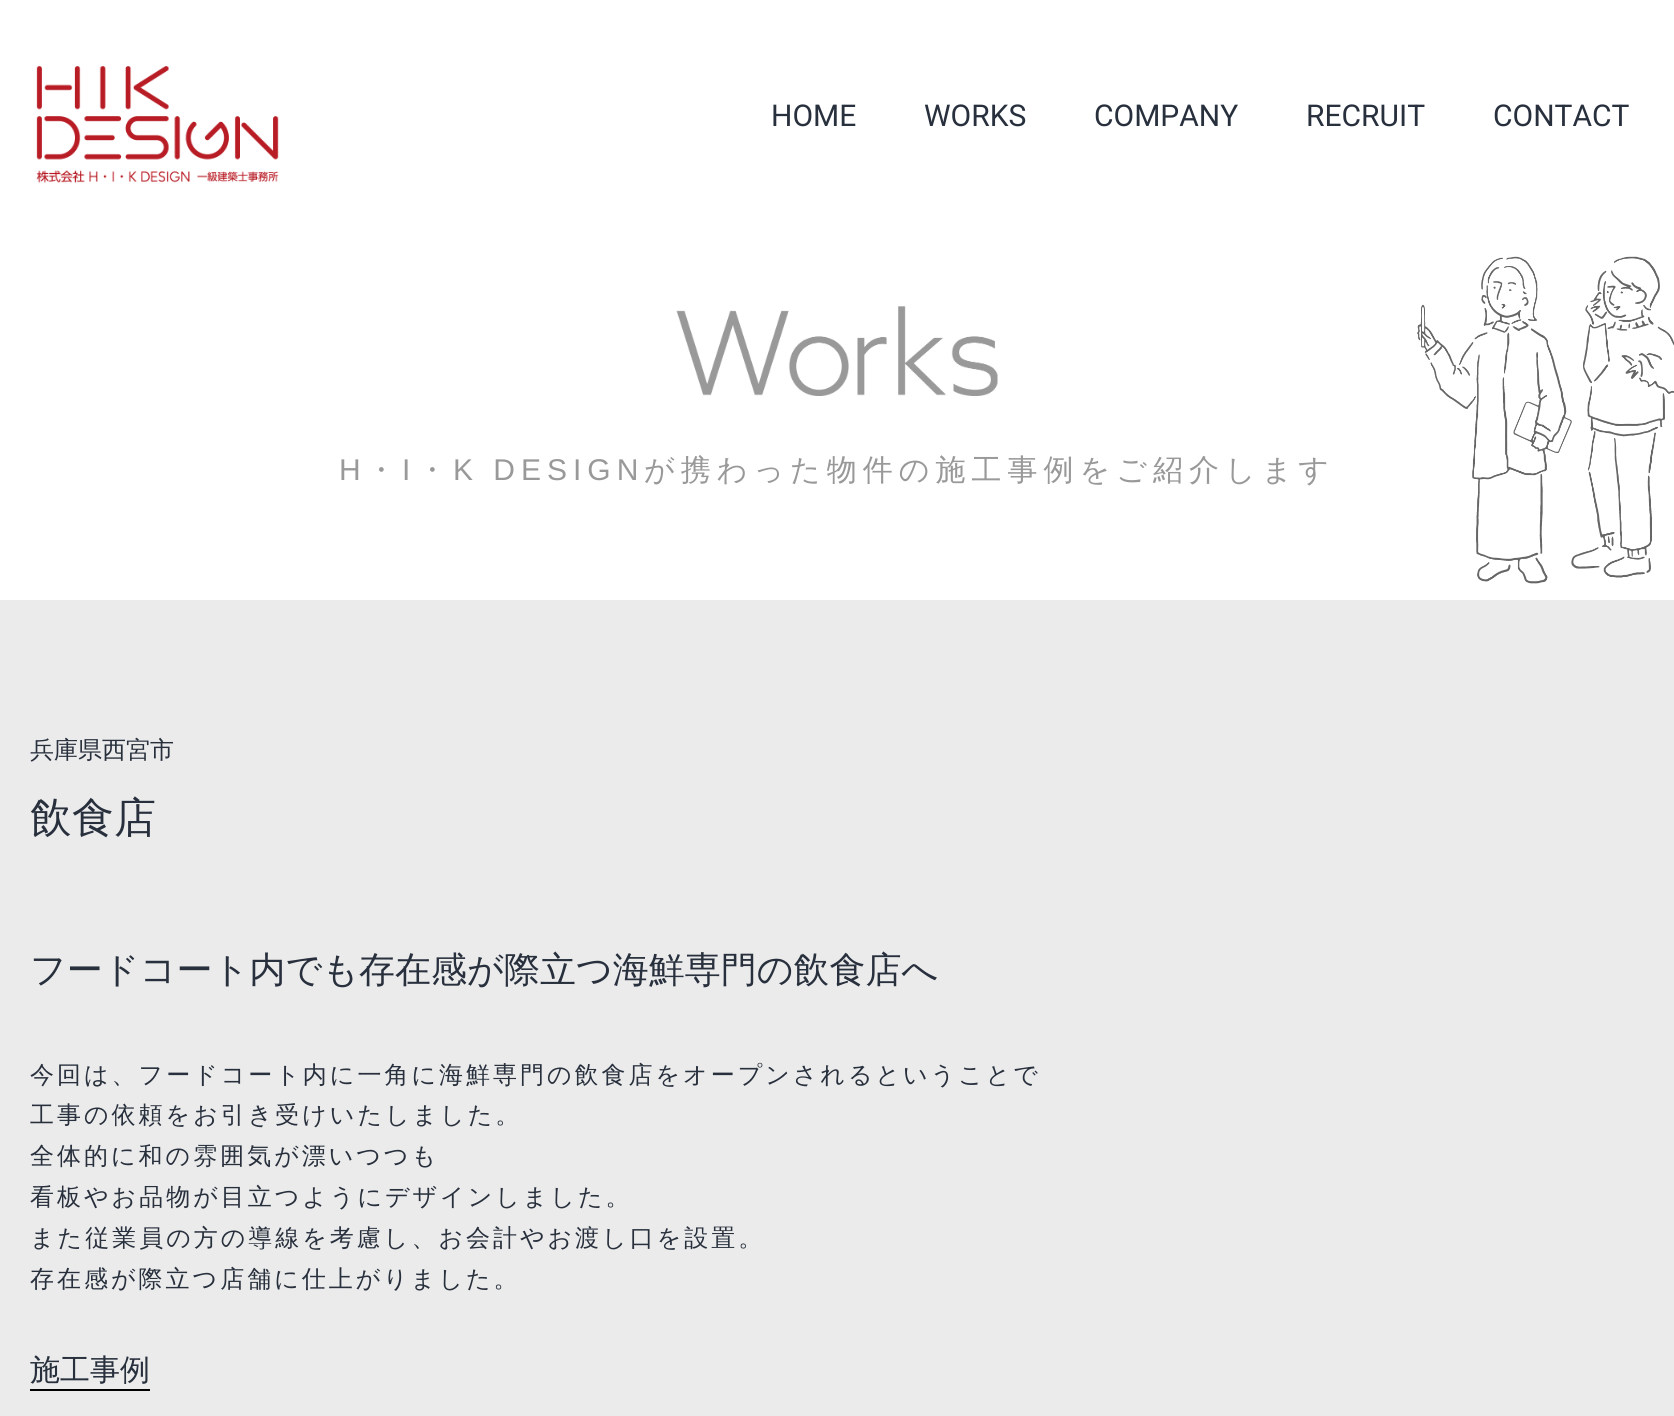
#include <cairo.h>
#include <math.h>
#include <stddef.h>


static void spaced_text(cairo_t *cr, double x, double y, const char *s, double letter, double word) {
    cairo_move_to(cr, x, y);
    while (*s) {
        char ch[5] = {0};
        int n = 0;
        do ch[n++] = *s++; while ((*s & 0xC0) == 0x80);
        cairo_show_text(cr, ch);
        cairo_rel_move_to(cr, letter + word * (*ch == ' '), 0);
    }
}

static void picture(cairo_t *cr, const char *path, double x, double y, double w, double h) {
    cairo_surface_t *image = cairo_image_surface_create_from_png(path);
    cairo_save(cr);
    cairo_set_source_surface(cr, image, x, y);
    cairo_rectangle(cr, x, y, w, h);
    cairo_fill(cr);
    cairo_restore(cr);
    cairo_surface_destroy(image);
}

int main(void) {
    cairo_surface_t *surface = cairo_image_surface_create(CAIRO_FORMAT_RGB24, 1674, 1416);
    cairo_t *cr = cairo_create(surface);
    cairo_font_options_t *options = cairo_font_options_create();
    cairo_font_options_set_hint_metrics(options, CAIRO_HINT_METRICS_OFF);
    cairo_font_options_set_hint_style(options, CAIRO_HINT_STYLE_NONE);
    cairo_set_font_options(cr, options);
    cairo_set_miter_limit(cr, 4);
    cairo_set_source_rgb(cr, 0.918, 0.918, 0.918);
    cairo_paint(cr);
    cairo_set_source_rgb(cr, 1, 1, 1);
    cairo_rectangle(cr, 0, 0, 1674, 600);
    cairo_fill(cr);
    picture(cr, "img1.png", 36, 66, 243, 117);
    cairo_select_font_face(cr, "Roboto", CAIRO_FONT_SLANT_NORMAL, CAIRO_FONT_WEIGHT_NORMAL);
    cairo_set_font_size(cr, 30);
    cairo_set_source_rgb(cr, 0.157, 0.188, 0.239);
    cairo_move_to(cr, 771, 126);
    cairo_show_text(cr, "HOME");
    cairo_move_to(cr, 924, 126);
    cairo_show_text(cr, "WORKS");
    cairo_move_to(cr, 1094, 126);
    cairo_show_text(cr, "COMPANY");
    cairo_move_to(cr, 1306, 126);
    cairo_show_text(cr, "RECRUIT");
    cairo_move_to(cr, 1493, 126);
    cairo_show_text(cr, "CONTACT");
    picture(cr, "img2.png", 676, 306, 322, 90);
    picture(cr, "img3.png", 1417, 256, 257, 328);
    cairo_select_font_face(cr, "Liberation Sans", CAIRO_FONT_SLANT_NORMAL, CAIRO_FONT_WEIGHT_NORMAL);
    cairo_set_source_rgb(cr, 0.6, 0.6, 0.6);
    spaced_text(cr, 339, 480, "H", 6, 0);
    cairo_select_font_face(cr, "WenQuanYi Zen Hei Medium", CAIRO_FONT_SLANT_NORMAL, CAIRO_FONT_WEIGHT_NORMAL);
    spaced_text(cr, 366, 480, "・", 6, 0);
    cairo_select_font_face(cr, "Liberation Sans", CAIRO_FONT_SLANT_NORMAL, CAIRO_FONT_WEIGHT_NORMAL);
    spaced_text(cr, 402, 480, "I", 6, 0);
    cairo_select_font_face(cr, "WenQuanYi Zen Hei Medium", CAIRO_FONT_SLANT_NORMAL, CAIRO_FONT_WEIGHT_NORMAL);
    spaced_text(cr, 417, 480, "・", 6, 0);
    cairo_select_font_face(cr, "Liberation Sans", CAIRO_FONT_SLANT_NORMAL, CAIRO_FONT_WEIGHT_NORMAL);
    spaced_text(cr, 453, 480, "K DESIGN", 6, 0);
    cairo_select_font_face(cr, "WenQuanYi Zen Hei Medium", CAIRO_FONT_SLANT_NORMAL, CAIRO_FONT_WEIGHT_NORMAL);
    spaced_text(cr, 644, 480, "が携わった物件の施工事例をご紹介します", 6, 0);
    cairo_set_font_size(cr, 24);
    cairo_set_source_rgb(cr, 0.157, 0.188, 0.239);
    cairo_move_to(cr, 30, 758);
    cairo_show_text(cr, "兵庫県西宮市");
    cairo_set_font_size(cr, 42);
    cairo_move_to(cr, 30, 832);
    cairo_show_text(cr, "飲食店");
    cairo_set_font_size(cr, 36);
    cairo_move_to(cr, 30, 982);
    cairo_show_text(cr, "フードコート内でも存在感が際立つ海鮮専門の飲食店へ");
    cairo_set_font_size(cr, 24);
    spaced_text(cr, 30, 1083, "今回は、フードコート内に一角に海鮮専門の飲食店をオープンされるということで", 3, 0);
    spaced_text(cr, 30, 1123, "工事の依頼をお引き受けいたしました。", 3, 0);
    spaced_text(cr, 30, 1164, "全体的に和の雰囲気が漂いつつも", 3, 0);
    spaced_text(cr, 30, 1205, "看板やお品物が目立つようにデザインしました。", 3, 0);
    spaced_text(cr, 30, 1246, "また従業員の方の導線を考慮し、お会計やお渡し口を設置。", 3, 0);
    spaced_text(cr, 30, 1287, "存在感が際立つ店舗に仕上がりました。", 3, 0);
    cairo_set_source_rgb(cr, 0, 0, 0);
    cairo_rectangle(cr, 30, 1389, 120, 2);
    cairo_fill(cr);
    cairo_set_font_size(cr, 30);
    cairo_set_source_rgb(cr, 0.157, 0.188, 0.239);
    cairo_move_to(cr, 30, 1380);
    cairo_show_text(cr, "施工事例");
    cairo_surface_write_to_png(surface, "page.png");
    cairo_font_options_destroy(options);
    cairo_destroy(cr);
    cairo_surface_destroy(surface);
    return 0;
}
